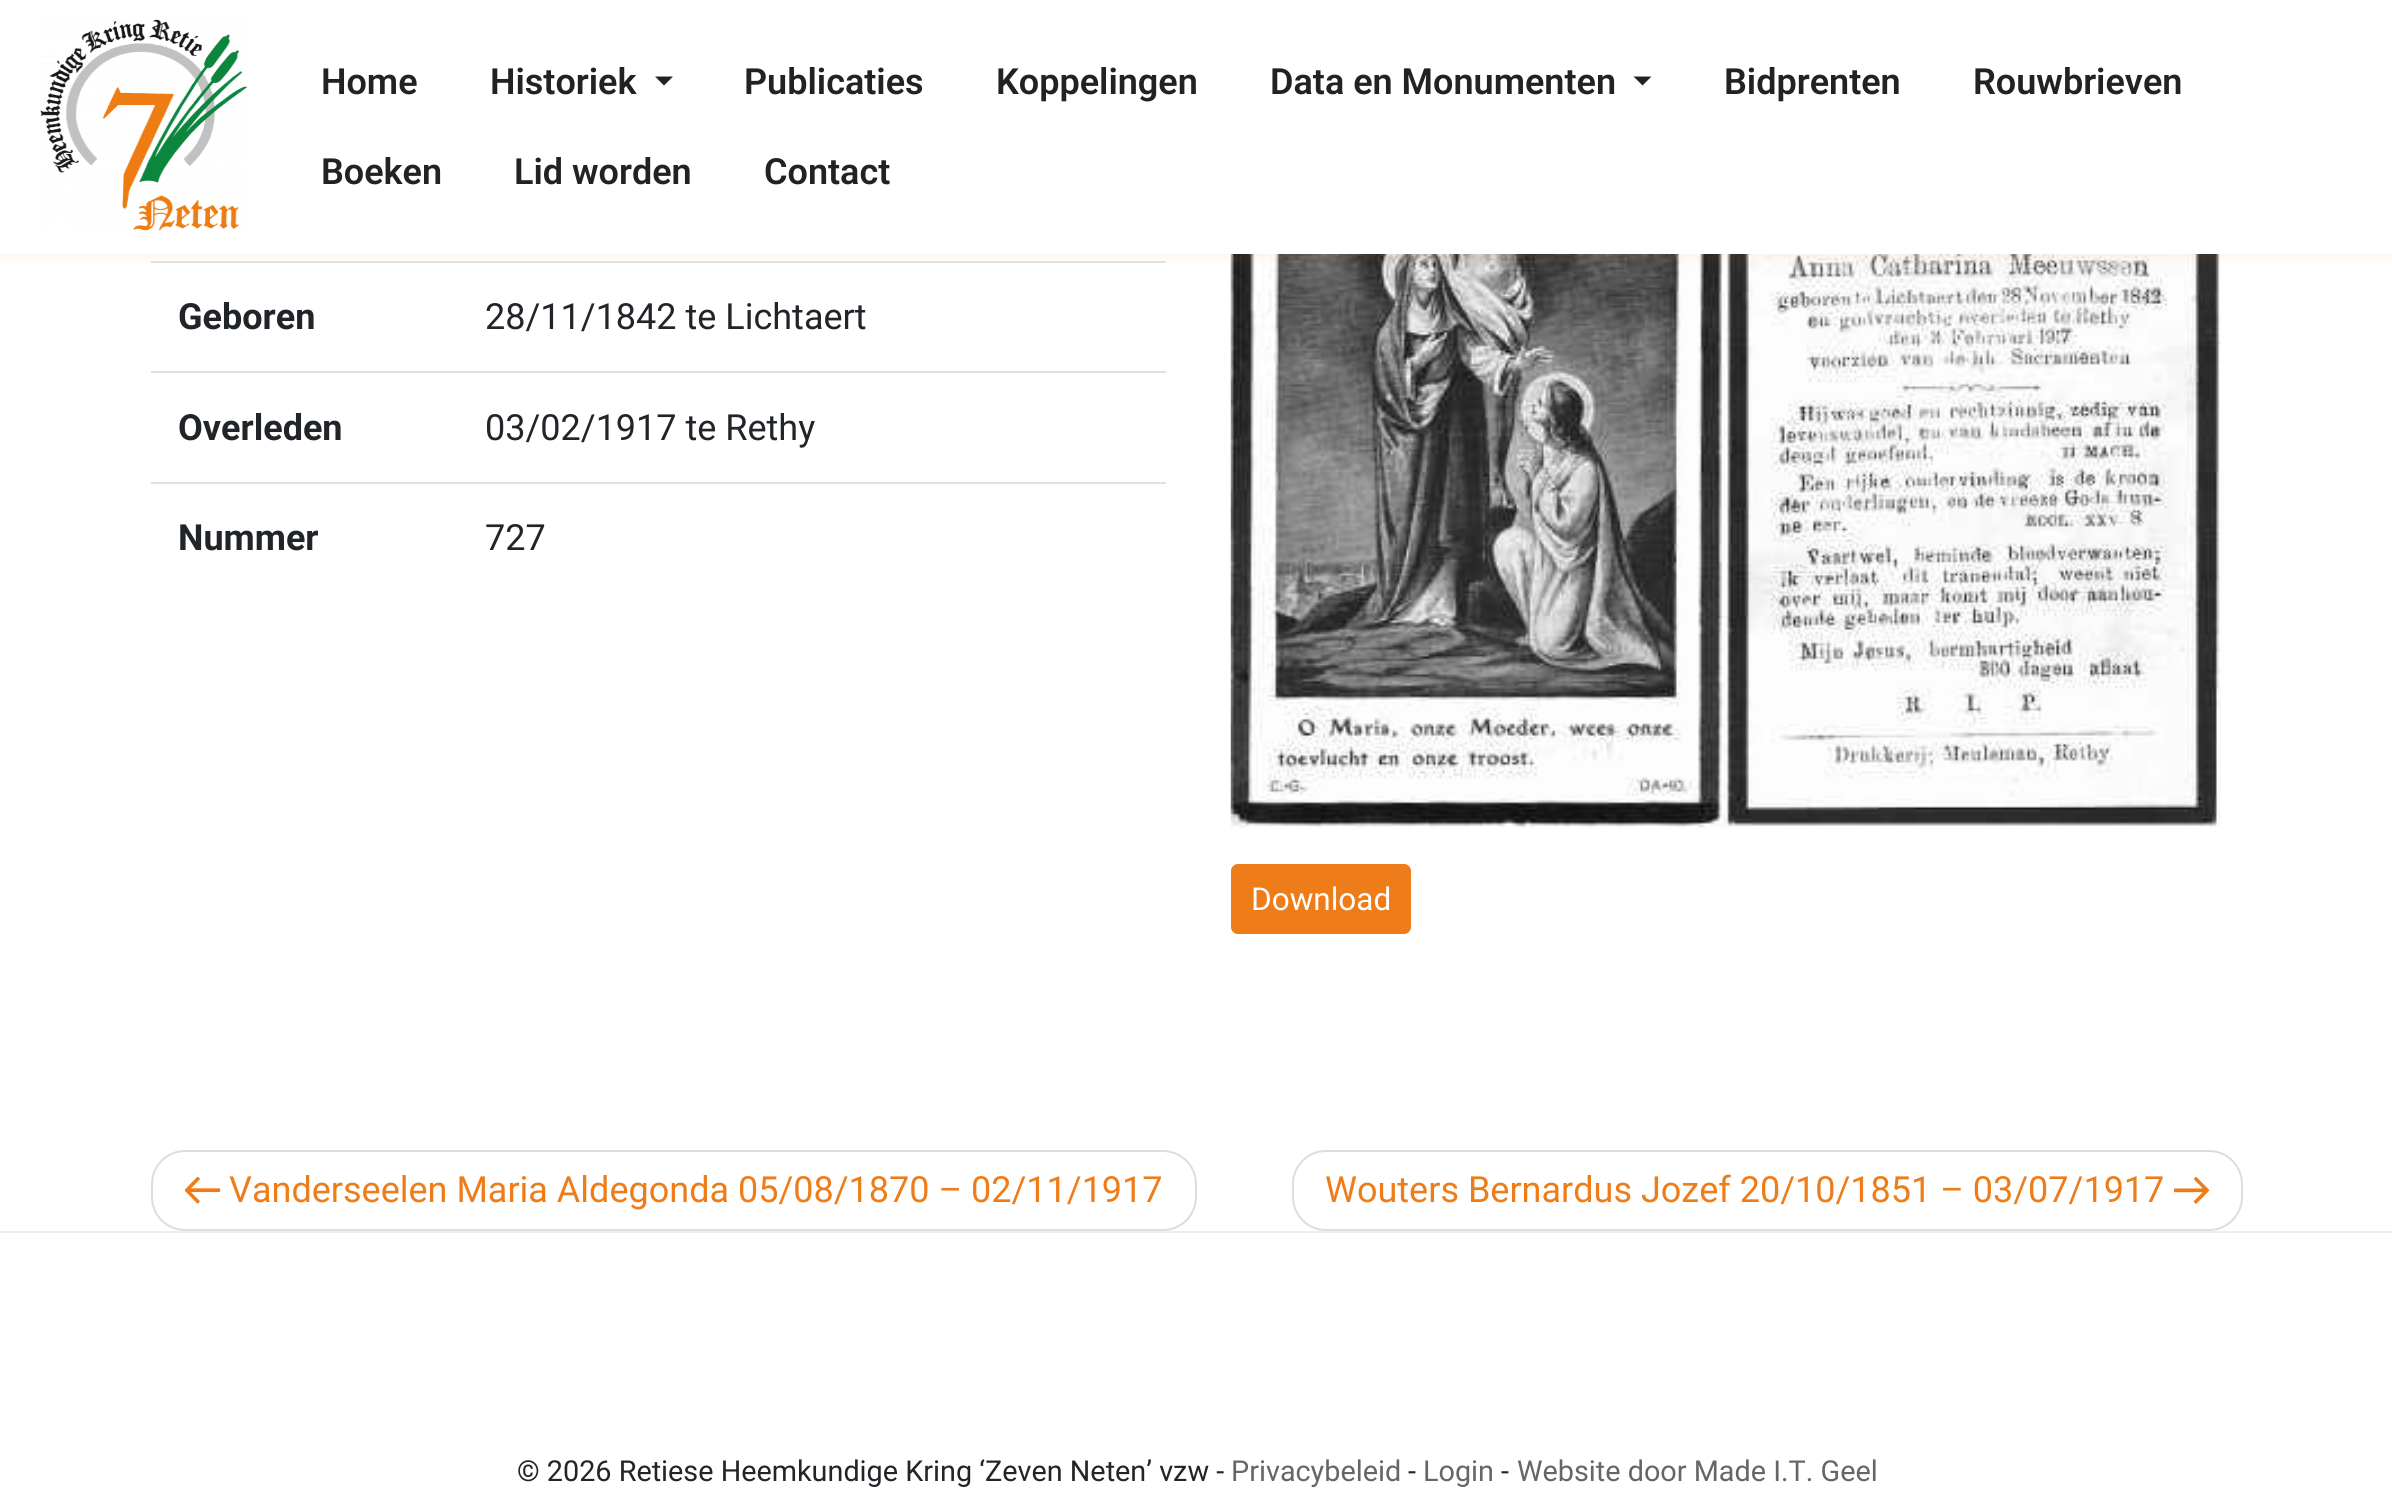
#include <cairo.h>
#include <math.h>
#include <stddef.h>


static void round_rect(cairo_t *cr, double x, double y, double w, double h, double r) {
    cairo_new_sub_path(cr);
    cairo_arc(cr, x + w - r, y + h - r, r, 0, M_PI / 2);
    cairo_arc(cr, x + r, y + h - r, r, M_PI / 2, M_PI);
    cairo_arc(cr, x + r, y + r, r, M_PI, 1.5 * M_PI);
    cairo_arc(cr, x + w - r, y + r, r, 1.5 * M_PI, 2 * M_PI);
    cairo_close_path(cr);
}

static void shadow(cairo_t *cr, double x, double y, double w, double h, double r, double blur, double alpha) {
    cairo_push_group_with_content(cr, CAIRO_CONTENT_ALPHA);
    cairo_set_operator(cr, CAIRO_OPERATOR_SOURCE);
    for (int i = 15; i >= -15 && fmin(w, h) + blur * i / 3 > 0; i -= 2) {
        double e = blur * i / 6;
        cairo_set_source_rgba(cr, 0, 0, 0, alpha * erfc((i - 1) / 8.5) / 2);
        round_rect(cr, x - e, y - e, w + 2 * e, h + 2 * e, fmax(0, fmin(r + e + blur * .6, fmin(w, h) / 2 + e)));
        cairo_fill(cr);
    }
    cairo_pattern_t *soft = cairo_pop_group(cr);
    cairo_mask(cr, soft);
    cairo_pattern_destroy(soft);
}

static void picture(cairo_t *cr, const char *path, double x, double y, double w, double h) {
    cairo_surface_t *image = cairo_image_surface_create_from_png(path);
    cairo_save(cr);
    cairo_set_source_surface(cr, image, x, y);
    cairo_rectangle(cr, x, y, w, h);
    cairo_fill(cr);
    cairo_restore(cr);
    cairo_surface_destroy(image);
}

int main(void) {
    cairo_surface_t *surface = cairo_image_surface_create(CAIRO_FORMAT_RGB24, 2392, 1492);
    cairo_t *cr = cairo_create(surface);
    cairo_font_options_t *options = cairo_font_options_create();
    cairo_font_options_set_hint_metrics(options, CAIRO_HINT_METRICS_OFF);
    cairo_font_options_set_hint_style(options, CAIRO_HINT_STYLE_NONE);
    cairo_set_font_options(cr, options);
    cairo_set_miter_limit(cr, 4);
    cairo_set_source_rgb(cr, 1, 1, 1);
    cairo_paint(cr);
    cairo_set_source_rgb(cr, 0.871, 0.886, 0.902);
    cairo_rectangle(cr, 151, 261, 1015, 2);
    cairo_fill(cr);
    picture(cr, "img2.png", 1230, 254, 991, 574);
    cairo_set_source_rgb(cr, 0.933, 0.49, 0.098);
    shadow(cr, 0, 5, 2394, 254, 0, 4.5, 0.07);
    cairo_set_source_rgb(cr, 1, 1, 1);
    cairo_rectangle(cr, 0, 1, 2392, 253);
    cairo_fill(cr);
    picture(cr, "img1.png", 40, 19, 208, 212);
    cairo_select_font_face(cr, "Roboto SemiBold", CAIRO_FONT_SLANT_NORMAL, CAIRO_FONT_WEIGHT_NORMAL);
    cairo_set_font_size(cr, 36);
    cairo_set_source_rgb(cr, 0.133, 0.133, 0.133);
    cairo_move_to(cr, 321, 94);
    cairo_show_text(cr, "Home");
    cairo_move_to(cr, 490, 94);
    cairo_show_text(cr, "Historiek");
    cairo_new_path(cr);
    cairo_move_to(cr, 655, 76.5);
    cairo_line_to(cr, 673, 76.5);
    cairo_line_to(cr, 664, 85.5);
    cairo_close_path(cr);
    cairo_fill(cr);
    cairo_move_to(cr, 744, 94);
    cairo_show_text(cr, "Publicaties");
    cairo_move_to(cr, 996, 94);
    cairo_show_text(cr, "Koppelingen");
    cairo_move_to(cr, 1270, 94);
    cairo_show_text(cr, "Data en Monumenten");
    cairo_new_path(cr);
    cairo_move_to(cr, 1633.5, 76.5);
    cairo_line_to(cr, 1651.5, 76.5);
    cairo_line_to(cr, 1642.5, 85.5);
    cairo_close_path(cr);
    cairo_fill(cr);
    cairo_move_to(cr, 1724, 94);
    cairo_show_text(cr, "Bidprenten");
    cairo_move_to(cr, 1973, 94);
    cairo_show_text(cr, "Rouwbrieven");
    cairo_move_to(cr, 321, 184);
    cairo_show_text(cr, "Boeken");
    cairo_move_to(cr, 514, 184);
    cairo_show_text(cr, "Lid worden");
    cairo_move_to(cr, 764, 184);
    cairo_show_text(cr, "Contact");
    cairo_select_font_face(cr, "Roboto", CAIRO_FONT_SLANT_NORMAL, CAIRO_FONT_WEIGHT_BOLD);
    cairo_set_source_rgb(cr, 0.129, 0.145, 0.161);
    cairo_move_to(cr, 178, 329);
    cairo_show_text(cr, "Geboren");
    cairo_select_font_face(cr, "Roboto", CAIRO_FONT_SLANT_NORMAL, CAIRO_FONT_WEIGHT_NORMAL);
    cairo_move_to(cr, 485, 329);
    cairo_show_text(cr, "28/11/1842 te Lichtaert");
    cairo_select_font_face(cr, "Roboto", CAIRO_FONT_SLANT_NORMAL, CAIRO_FONT_WEIGHT_BOLD);
    cairo_move_to(cr, 178, 440);
    cairo_show_text(cr, "Overleden");
    cairo_set_source_rgb(cr, 0.871, 0.886, 0.902);
    cairo_rectangle(cr, 151, 371, 1015, 2);
    cairo_fill(cr);
    cairo_select_font_face(cr, "Roboto", CAIRO_FONT_SLANT_NORMAL, CAIRO_FONT_WEIGHT_NORMAL);
    cairo_set_source_rgb(cr, 0.129, 0.145, 0.161);
    cairo_move_to(cr, 485, 440);
    cairo_show_text(cr, "03/02/1917 te Rethy");
    cairo_select_font_face(cr, "Roboto", CAIRO_FONT_SLANT_NORMAL, CAIRO_FONT_WEIGHT_BOLD);
    cairo_move_to(cr, 178, 550);
    cairo_show_text(cr, "Nummer");
    cairo_set_source_rgb(cr, 0.871, 0.886, 0.902);
    cairo_rectangle(cr, 151, 482, 1015, 2);
    cairo_fill(cr);
    cairo_select_font_face(cr, "Roboto", CAIRO_FONT_SLANT_NORMAL, CAIRO_FONT_WEIGHT_NORMAL);
    cairo_set_source_rgb(cr, 0.129, 0.145, 0.161);
    cairo_move_to(cr, 485, 550);
    cairo_show_text(cr, "727");
    cairo_set_source_rgb(cr, 0.933, 0.49, 0.098);
    round_rect(cr, 1232, 865, 178, 68, 6);
    cairo_fill_preserve(cr);
    cairo_stroke(cr);
    cairo_set_font_size(cr, 31.5);
    cairo_set_source_rgb(cr, 1, 1, 1);
    cairo_move_to(cr, 1251, 910);
    cairo_show_text(cr, "Download");
    round_rect(cr, 152, 1151, 1044, 79, 33);
    cairo_set_source_rgb(cr, 0.867, 0.867, 0.867);
    cairo_stroke(cr);
    picture(cr, "img3.png", 185, 1176, 36, 28);
    cairo_set_font_size(cr, 36);
    cairo_set_source_rgb(cr, 0.933, 0.49, 0.098);
    cairo_move_to(cr, 229, 1202);
    cairo_show_text(cr, "Vanderseelen Maria Aldegonda 05/08/1870 – 02/11/1917");
    round_rect(cr, 1293, 1151, 949, 79, 33);
    cairo_set_source_rgb(cr, 0.867, 0.867, 0.867);
    cairo_stroke(cr);
    cairo_set_source_rgb(cr, 0.933, 0.49, 0.098);
    cairo_move_to(cr, 1325, 1202);
    cairo_show_text(cr, "Wouters Bernardus Jozef 20/10/1851 – 03/07/1917");
    picture(cr, "img4.png", 2174, 1176, 36, 28);
    cairo_set_source_rgb(cr, 0.933, 0.933, 0.933);
    cairo_rectangle(cr, 0, 1231, 2392, 2);
    cairo_fill(cr);
    cairo_set_font_size(cr, 28.8);
    cairo_set_source_rgb(cr, 0.129, 0.145, 0.161);
    cairo_move_to(cr, 517, 1481);
    cairo_show_text(cr, "© 2026 Retiese Heemkundige Kring ‘Zeven Neten’ vzw -");
    cairo_set_source_rgb(cr, 0.4, 0.4, 0.4);
    cairo_move_to(cr, 1231, 1481);
    cairo_show_text(cr, "Privacybeleid");
    cairo_set_source_rgb(cr, 0.129, 0.145, 0.161);
    cairo_move_to(cr, 1408, 1481);
    cairo_show_text(cr, "-");
    cairo_set_source_rgb(cr, 0.4, 0.4, 0.4);
    cairo_move_to(cr, 1423, 1481);
    cairo_show_text(cr, "Login");
    cairo_set_source_rgb(cr, 0.129, 0.145, 0.161);
    cairo_move_to(cr, 1501, 1481);
    cairo_show_text(cr, "-");
    cairo_set_source_rgb(cr, 0.4, 0.4, 0.4);
    cairo_move_to(cr, 1517, 1481);
    cairo_show_text(cr, "Website door Made I.T. Geel");
    cairo_surface_write_to_png(surface, "page.png");
    cairo_font_options_destroy(options);
    cairo_destroy(cr);
    cairo_surface_destroy(surface);
    return 0;
}
